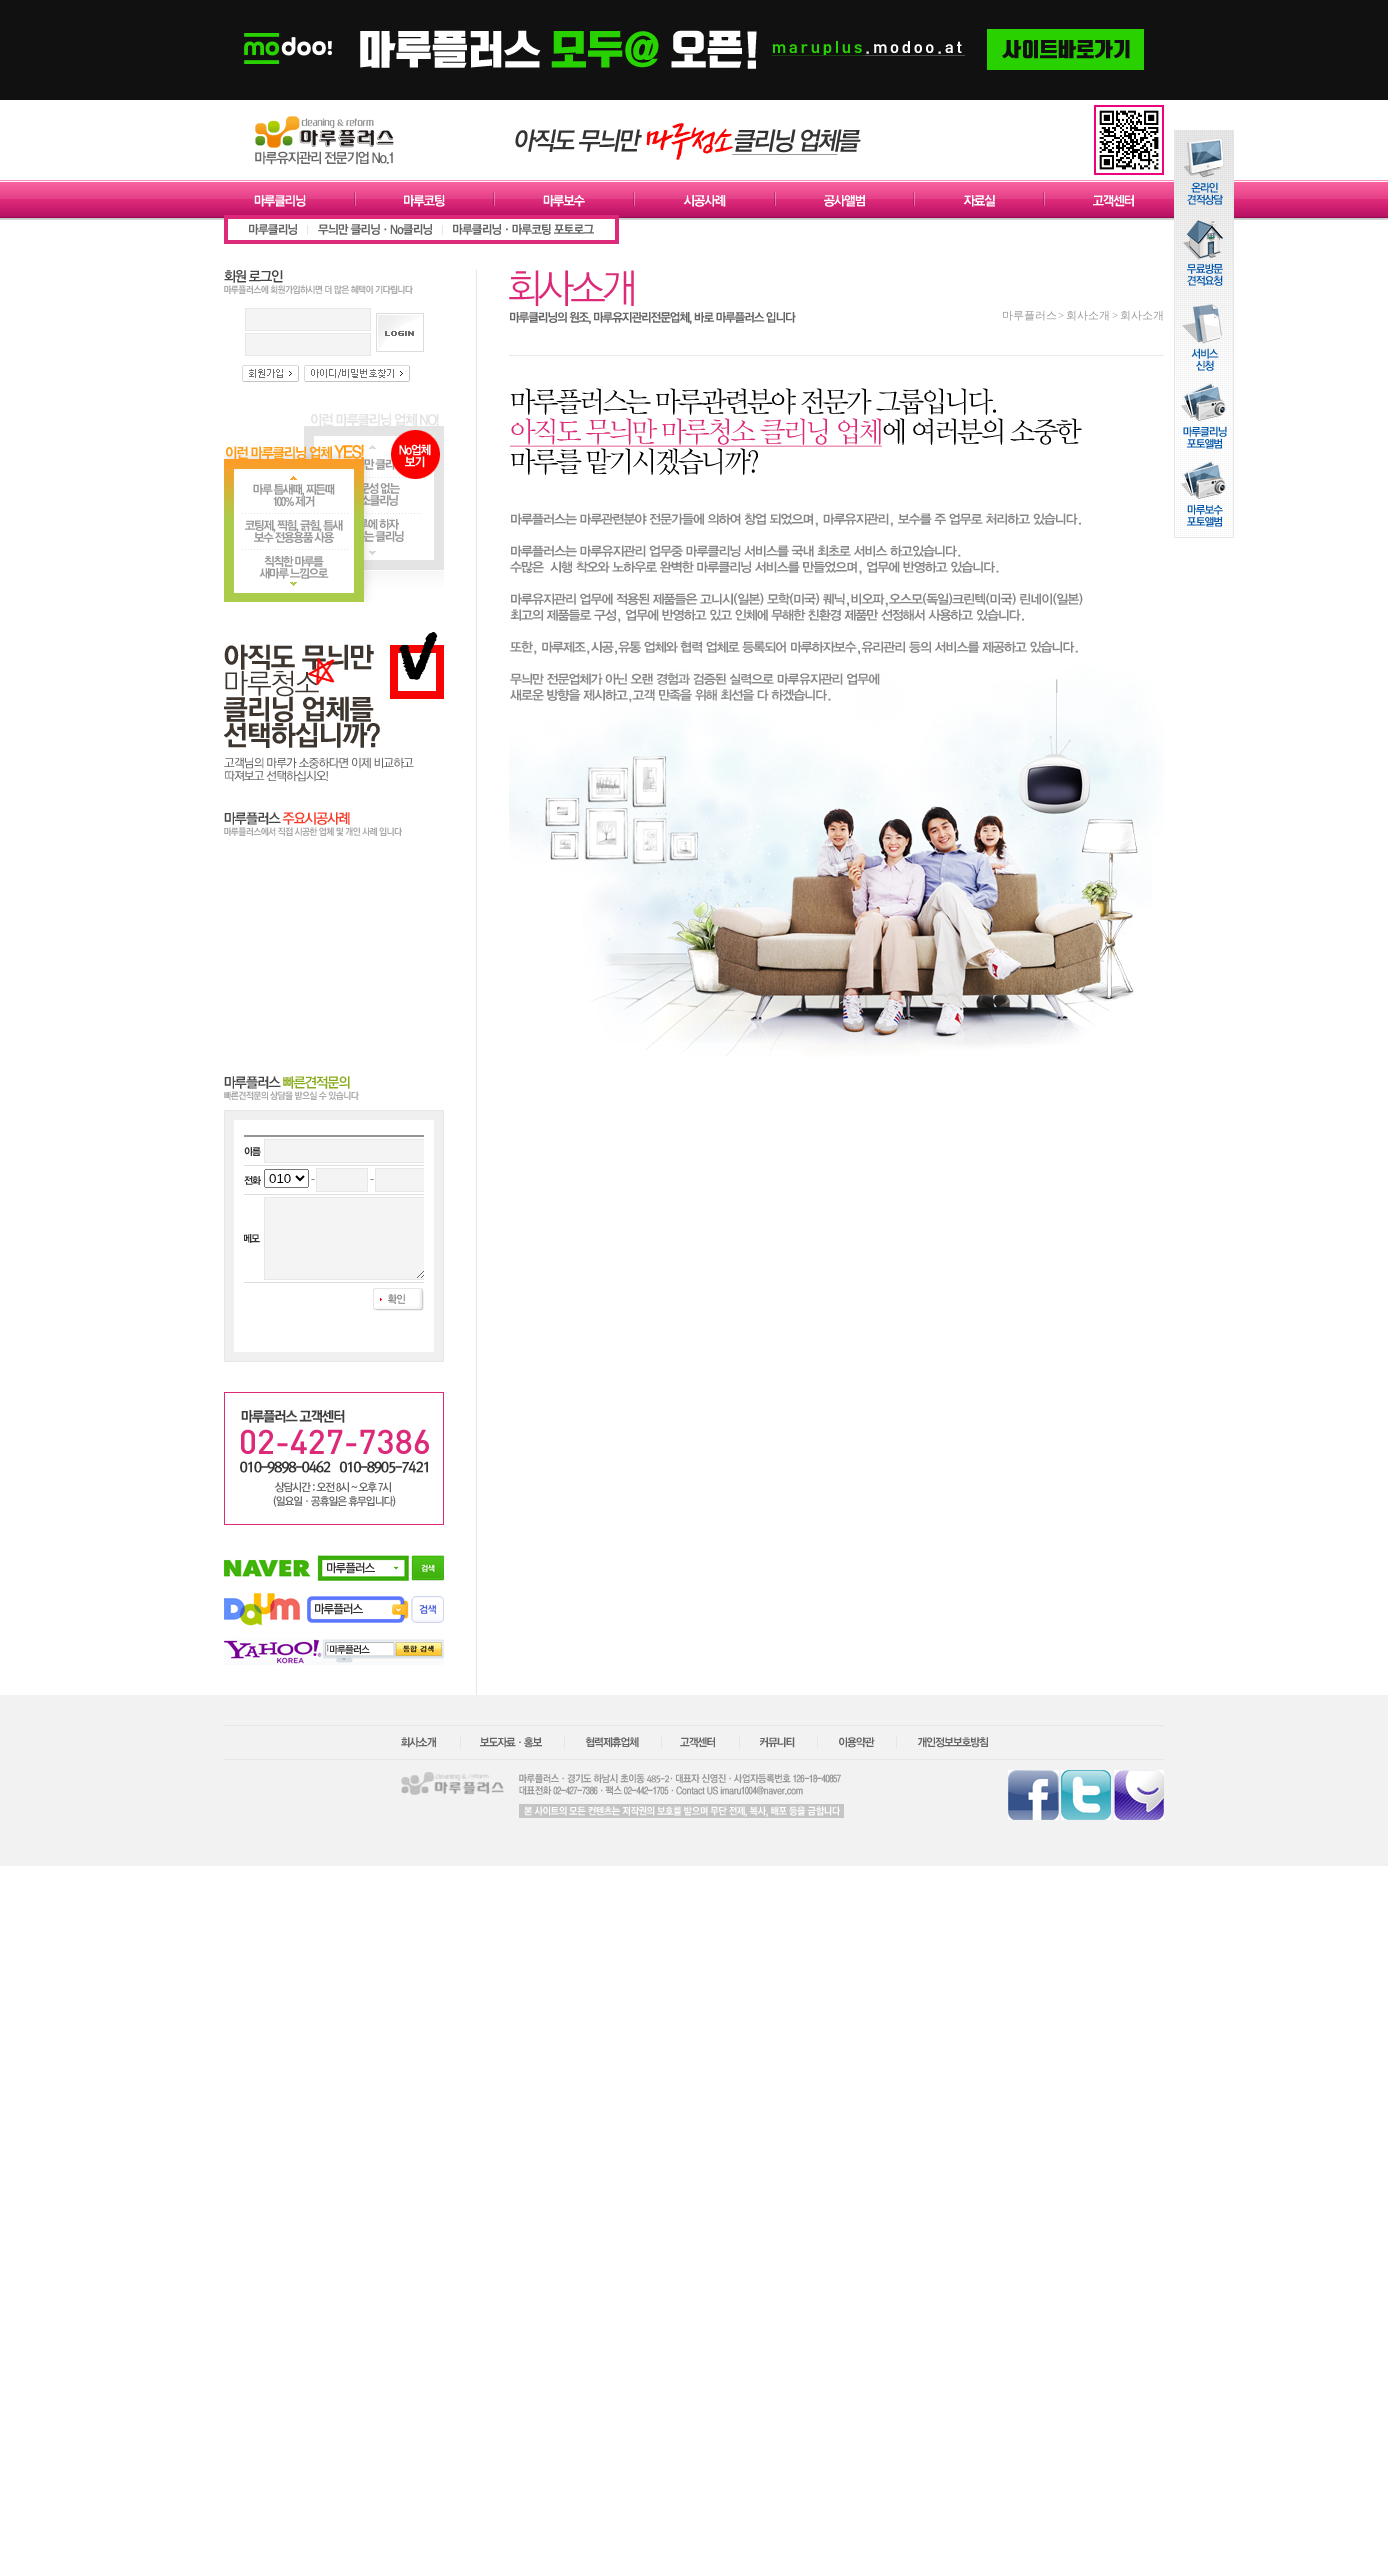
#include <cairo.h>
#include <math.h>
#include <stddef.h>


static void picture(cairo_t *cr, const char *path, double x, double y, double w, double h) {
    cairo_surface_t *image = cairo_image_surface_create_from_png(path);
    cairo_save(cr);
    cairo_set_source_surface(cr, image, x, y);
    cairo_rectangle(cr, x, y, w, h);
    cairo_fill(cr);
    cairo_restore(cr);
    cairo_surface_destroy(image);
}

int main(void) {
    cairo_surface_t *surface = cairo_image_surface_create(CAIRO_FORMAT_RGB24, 1388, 2571);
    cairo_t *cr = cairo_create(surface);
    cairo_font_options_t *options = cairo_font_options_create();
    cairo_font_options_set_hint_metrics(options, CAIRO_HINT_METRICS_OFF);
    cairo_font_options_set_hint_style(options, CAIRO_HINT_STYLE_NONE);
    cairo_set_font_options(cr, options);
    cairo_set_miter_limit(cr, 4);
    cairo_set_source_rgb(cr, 1, 1, 1);
    cairo_paint(cr);
    cairo_set_source_rgb(cr, 0.067, 0.067, 0.067);
    cairo_rectangle(cr, 0, 0, 1388, 100);
    cairo_fill(cr);
    picture(cr, "img1.png", 244, 24, 900, 48);
    picture(cr, "img2.png", 255, 116, 139, 49);
    picture(cr, "img3.png", 515, 123, 346, 37);
    picture(cr, "img4.png", 1094, 105, 70, 70);
    picture(cr, "img5.png", 0, 180, 1388, 40);
    picture(cr, "img6.png", 254, 194, 52, 13);
    picture(cr, "img7.png", 354, 192, 2, 14);
    picture(cr, "img8.png", 404, 194, 41, 13);
    picture(cr, "img7.png", 493, 192, 2, 14);
    picture(cr, "img9.png", 543, 194, 42, 13);
    picture(cr, "img7.png", 633, 192, 2, 14);
    picture(cr, "img10.png", 683, 194, 43, 13);
    picture(cr, "img7.png", 774, 192, 2, 14);
    picture(cr, "img11.png", 824, 194, 41, 13);
    picture(cr, "img7.png", 913, 192, 2, 14);
    picture(cr, "img12.png", 963, 194, 32, 13);
    picture(cr, "img7.png", 1043, 192, 2, 14);
    picture(cr, "img13.png", 1093, 194, 41, 13);
    picture(cr, "img14.png", 224, 215, 395, 29);
    cairo_set_source_rgb(cr, 0.863, 0.161, 0.471);
    cairo_rectangle(cr, 224, 219, 4, 21);
    cairo_fill(cr);
    picture(cr, "img15.png", 249, 224, 48, 11);
    cairo_set_source_rgb(cr, 0.902, 0.902, 0.902);
    cairo_rectangle(cr, 307, 225, 1, 10);
    cairo_fill(cr);
    picture(cr, "img16.png", 318, 224, 114, 11);
    cairo_rectangle(cr, 442, 225, 1, 10);
    cairo_fill(cr);
    picture(cr, "img17.png", 453, 224, 141, 11);
    cairo_set_source_rgb(cr, 0.863, 0.161, 0.471);
    cairo_rectangle(cr, 615, 219, 4, 21);
    cairo_fill(cr);
    cairo_set_source_rgb(cr, 0.902, 0.902, 0.902);
    cairo_rectangle(cr, 476, 270, 1, 1425);
    cairo_fill(cr);
    picture(cr, "img18.png", 224, 270, 189, 25);
    cairo_set_source_rgb(cr, 0.957, 0.957, 0.957);
    cairo_rectangle(cr, 245.5, 308.5, 125, 22);
    cairo_fill_preserve(cr);
    cairo_set_source_rgb(cr, 0.906, 0.906, 0.906);
    cairo_set_line_width(cr, 1);
    cairo_stroke(cr);
    cairo_set_source_rgb(cr, 0.957, 0.957, 0.957);
    cairo_rectangle(cr, 245.5, 333.5, 125, 22);
    cairo_fill_preserve(cr);
    cairo_set_source_rgb(cr, 0.906, 0.906, 0.906);
    cairo_stroke(cr);
    picture(cr, "img19.png", 376, 313, 48, 39);
    picture(cr, "img20.png", 242, 365, 57, 17);
    picture(cr, "img21.png", 304, 365, 106, 17);
    picture(cr, "img22.png", 224, 413, 220, 189);
    picture(cr, "img23.png", 224, 632, 220, 150);
    picture(cr, "img24.png", 224, 812, 178, 24);
    picture(cr, "img25.png", 224, 1076, 135, 24);
    picture(cr, "img26.png", 224, 1110, 220, 25);
    picture(cr, "img27.png", 224, 1135, 220, 202);
    picture(cr, "img28.png", 244, 1135, 180, 176);
    picture(cr, "img29.png", 224, 1337, 220, 25);
    picture(cr, "img30.png", 224, 1392, 220, 133);
    picture(cr, "img31.png", 224, 1555, 220, 110);
    picture(cr, "img32.png", 509, 270, 287, 55);
    cairo_select_font_face(cr, "WenQuanYi Zen Hei Medium", CAIRO_FONT_SLANT_NORMAL, CAIRO_FONT_WEIGHT_NORMAL);
    cairo_set_font_size(cr, 11);
    cairo_set_source_rgb(cr, 0.6, 0.6, 0.6);
    cairo_move_to(cr, 1002, 319);
    cairo_show_text(cr, "마루플러스");
    cairo_select_font_face(cr, "Liberation Serif", CAIRO_FONT_SLANT_NORMAL, CAIRO_FONT_WEIGHT_NORMAL);
    cairo_move_to(cr, 1058, 319);
    cairo_show_text(cr, ">");
    cairo_select_font_face(cr, "WenQuanYi Zen Hei Medium", CAIRO_FONT_SLANT_NORMAL, CAIRO_FONT_WEIGHT_NORMAL);
    cairo_move_to(cr, 1066, 319);
    cairo_show_text(cr, "회사소개");
    cairo_select_font_face(cr, "Liberation Serif", CAIRO_FONT_SLANT_NORMAL, CAIRO_FONT_WEIGHT_NORMAL);
    cairo_move_to(cr, 1112, 319);
    cairo_show_text(cr, ">");
    cairo_select_font_face(cr, "WenQuanYi Zen Hei Medium", CAIRO_FONT_SLANT_NORMAL, CAIRO_FONT_WEIGHT_NORMAL);
    cairo_move_to(cr, 1120, 319);
    cairo_show_text(cr, "회사소개");
    cairo_set_source_rgb(cr, 0.914, 0.914, 0.914);
    cairo_rectangle(cr, 509, 355, 655, 1);
    cairo_fill(cr);
    picture(cr, "img33.png", 509, 388, 655, 669);
    picture(cr, "img34.png", 1174, 130, 60, 408);
    cairo_set_source_rgb(cr, 0.949, 0.949, 0.949);
    cairo_rectangle(cr, 0, 1695, 1388, 171);
    cairo_fill(cr);
    picture(cr, "img35.png", 224, 1725, 940, 35);
    picture(cr, "img36.png", 401, 1772, 443, 46);
    picture(cr, "img37.png", 1008, 1770, 51, 50);
    picture(cr, "img38.png", 1061, 1770, 50, 50);
    picture(cr, "img39.png", 1114, 1770, 50, 50);
    cairo_surface_write_to_png(surface, "page.png");
    cairo_font_options_destroy(options);
    cairo_destroy(cr);
    cairo_surface_destroy(surface);
    return 0;
}
